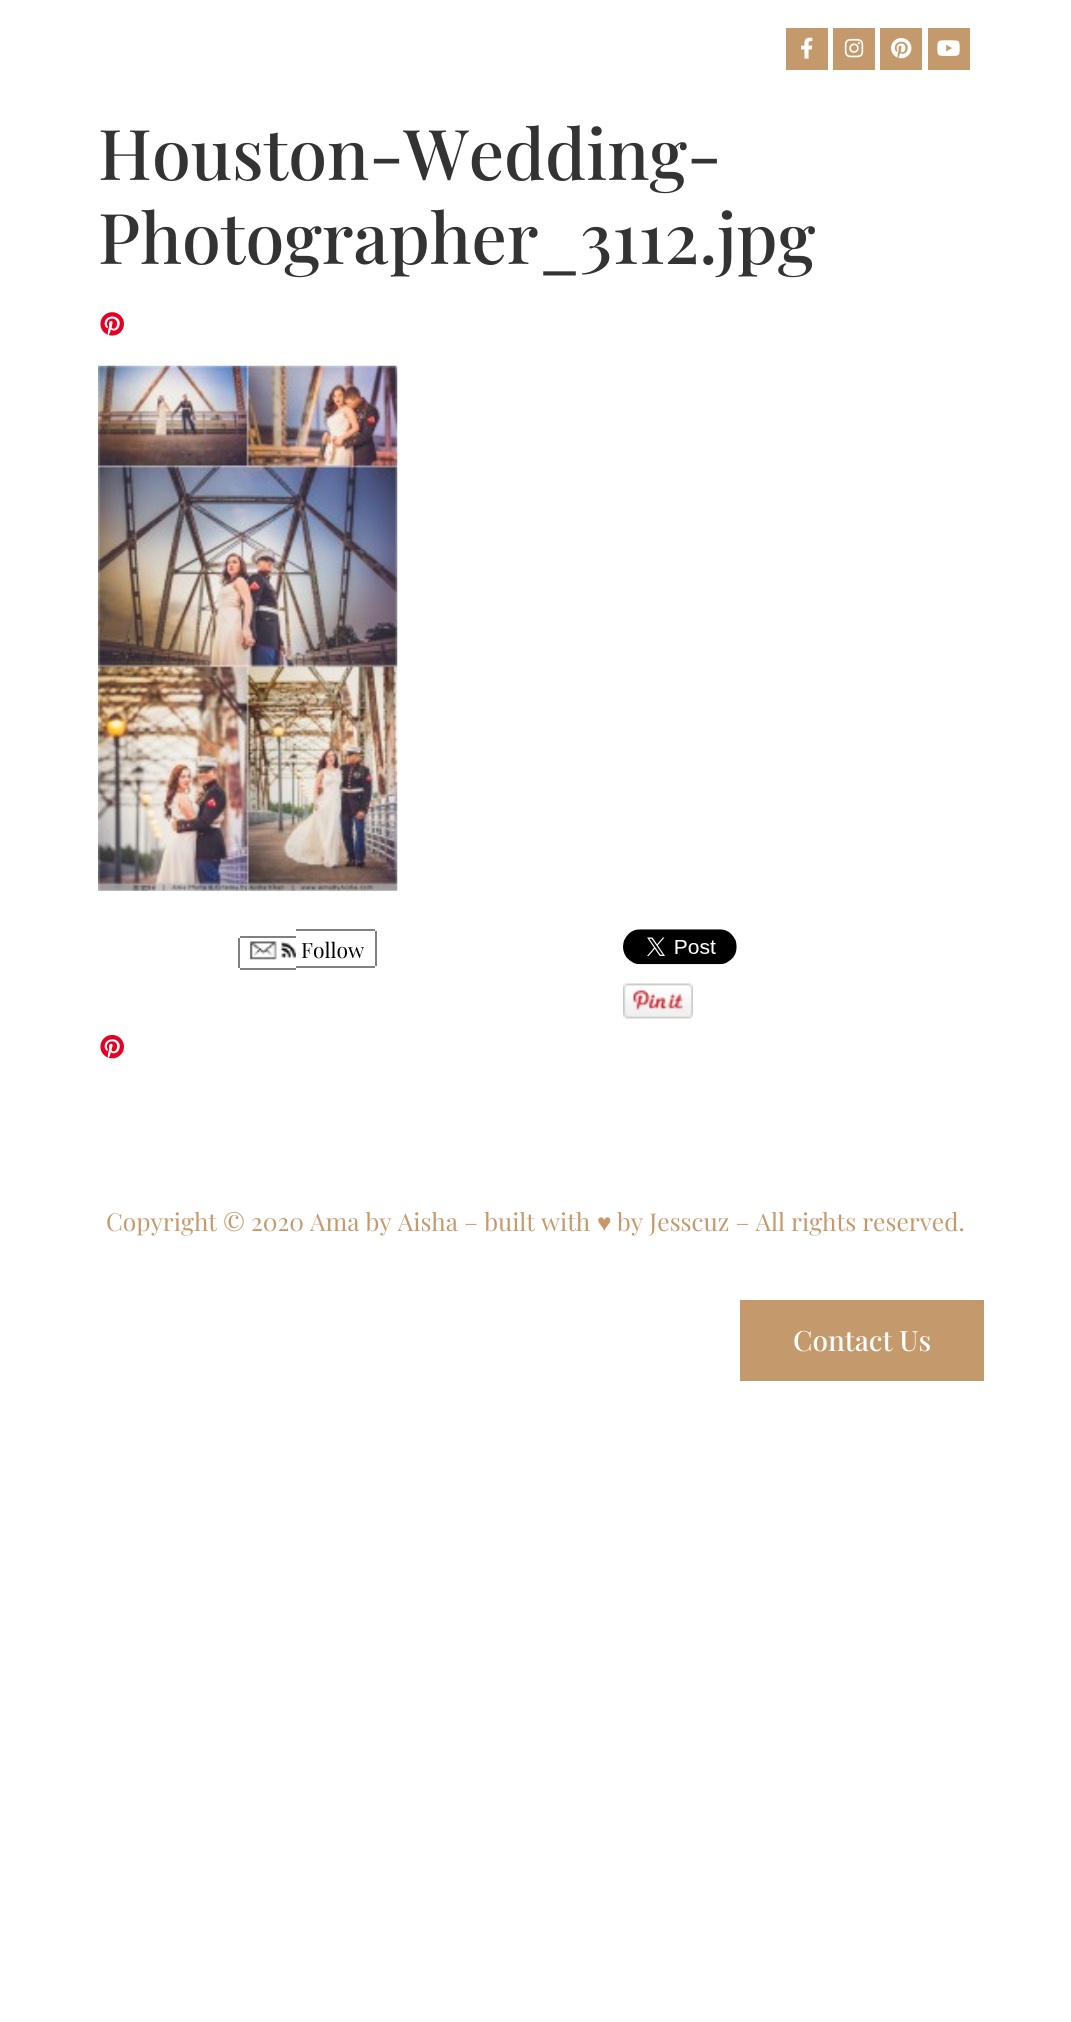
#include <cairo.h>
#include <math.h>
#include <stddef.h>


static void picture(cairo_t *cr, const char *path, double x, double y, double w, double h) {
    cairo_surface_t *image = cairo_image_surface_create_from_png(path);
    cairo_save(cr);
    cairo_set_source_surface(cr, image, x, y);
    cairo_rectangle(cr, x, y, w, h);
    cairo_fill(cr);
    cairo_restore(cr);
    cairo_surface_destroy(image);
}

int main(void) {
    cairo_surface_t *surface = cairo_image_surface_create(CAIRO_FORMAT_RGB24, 1071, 2022);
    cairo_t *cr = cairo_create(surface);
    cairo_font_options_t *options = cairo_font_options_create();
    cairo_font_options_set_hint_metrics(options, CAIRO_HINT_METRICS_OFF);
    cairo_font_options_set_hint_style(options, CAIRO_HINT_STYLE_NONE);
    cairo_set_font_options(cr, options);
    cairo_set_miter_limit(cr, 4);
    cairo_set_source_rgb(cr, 1, 1, 1);
    cairo_paint(cr);
    cairo_set_source_rgb(cr, 0.769, 0.604, 0.424);
    cairo_rectangle(cr, 786, 28, 42, 42);
    cairo_fill(cr);
    picture(cr, "img1.png", 801, 37, 12, 22);
    cairo_rectangle(cr, 833, 28, 42, 42);
    cairo_fill(cr);
    picture(cr, "img2.png", 844, 38, 20, 20);
    cairo_rectangle(cr, 880, 28, 42, 42);
    cairo_fill(cr);
    picture(cr, "img3.png", 891, 37, 21, 22);
    cairo_rectangle(cr, 928, 28, 42, 42);
    cairo_fill(cr);
    picture(cr, "img4.png", 937, 40, 23, 16);
    cairo_select_font_face(cr, "Playfair Display Medium", CAIRO_FONT_SLANT_NORMAL, CAIRO_FONT_WEIGHT_NORMAL);
    cairo_set_font_size(cr, 70);
    cairo_set_source_rgb(cr, 0.2, 0.2, 0.2);
    cairo_move_to(cr, 98, 180);
    cairo_show_text(cr, "Houston-Wedding-");
    cairo_move_to(cr, 98, 264);
    cairo_show_text(cr, "Photographer_3112.jpg");
    picture(cr, "img5.png", 100, 312, 24, 24);
    picture(cr, "img6.png", 98, 365, 300, 526);
    picture(cr, "img7.png", 250, 941, 46, 19);
    cairo_select_font_face(cr, "Playfair Display", CAIRO_FONT_SLANT_NORMAL, CAIRO_FONT_WEIGHT_NORMAL);
    cairo_set_font_size(cr, 21);
    cairo_set_source_rgb(cr, 0, 0, 0);
    cairo_move_to(cr, 301, 958);
    cairo_show_text(cr, "Follow");
    cairo_set_source_rgb(cr, 0.502, 0.502, 0.502);
    cairo_rectangle(cr, 240, 936, 56, 2);
    cairo_fill(cr);
    cairo_rectangle(cr, 240, 968, 56, 2);
    cairo_fill(cr);
    cairo_rectangle(cr, 238, 938, 2, 30);
    cairo_fill(cr);
    cairo_rectangle(cr, 296, 929, 79, 2);
    cairo_fill(cr);
    cairo_rectangle(cr, 375, 931, 2, 35);
    cairo_fill(cr);
    cairo_rectangle(cr, 296, 966, 79, 2);
    cairo_fill(cr);
    picture(cr, "img8.png", 623, 929, 114, 36);
    picture(cr, "img9.png", 623, 983, 70, 36);
    picture(cr, "img10.png", 100, 1034, 24, 25);
    cairo_set_font_size(cr, 24.5);
    cairo_set_source_rgb(cr, 0.769, 0.604, 0.424);
    cairo_move_to(cr, 106, 1231);
    cairo_show_text(cr, "Copyright © 2020 Ama by Aisha – built with");
    cairo_select_font_face(cr, "Liberation Sans", CAIRO_FONT_SLANT_NORMAL, CAIRO_FONT_WEIGHT_NORMAL);
    cairo_move_to(cr, 597, 1231);
    cairo_show_text(cr, "♥");
    cairo_select_font_face(cr, "Playfair Display", CAIRO_FONT_SLANT_NORMAL, CAIRO_FONT_WEIGHT_NORMAL);
    cairo_move_to(cr, 617, 1231);
    cairo_show_text(cr, "by Jesscuz – All rights reserved.");
    cairo_rectangle(cr, 740, 1300, 244, 81);
    cairo_fill(cr);
    cairo_select_font_face(cr, "Playfair Display Medium", CAIRO_FONT_SLANT_NORMAL, CAIRO_FONT_WEIGHT_NORMAL);
    cairo_set_font_size(cr, 28);
    cairo_set_source_rgb(cr, 1, 1, 1);
    cairo_move_to(cr, 793, 1351);
    cairo_show_text(cr, "Contact Us");
    cairo_surface_write_to_png(surface, "page.png");
    cairo_font_options_destroy(options);
    cairo_destroy(cr);
    cairo_surface_destroy(surface);
    return 0;
}
